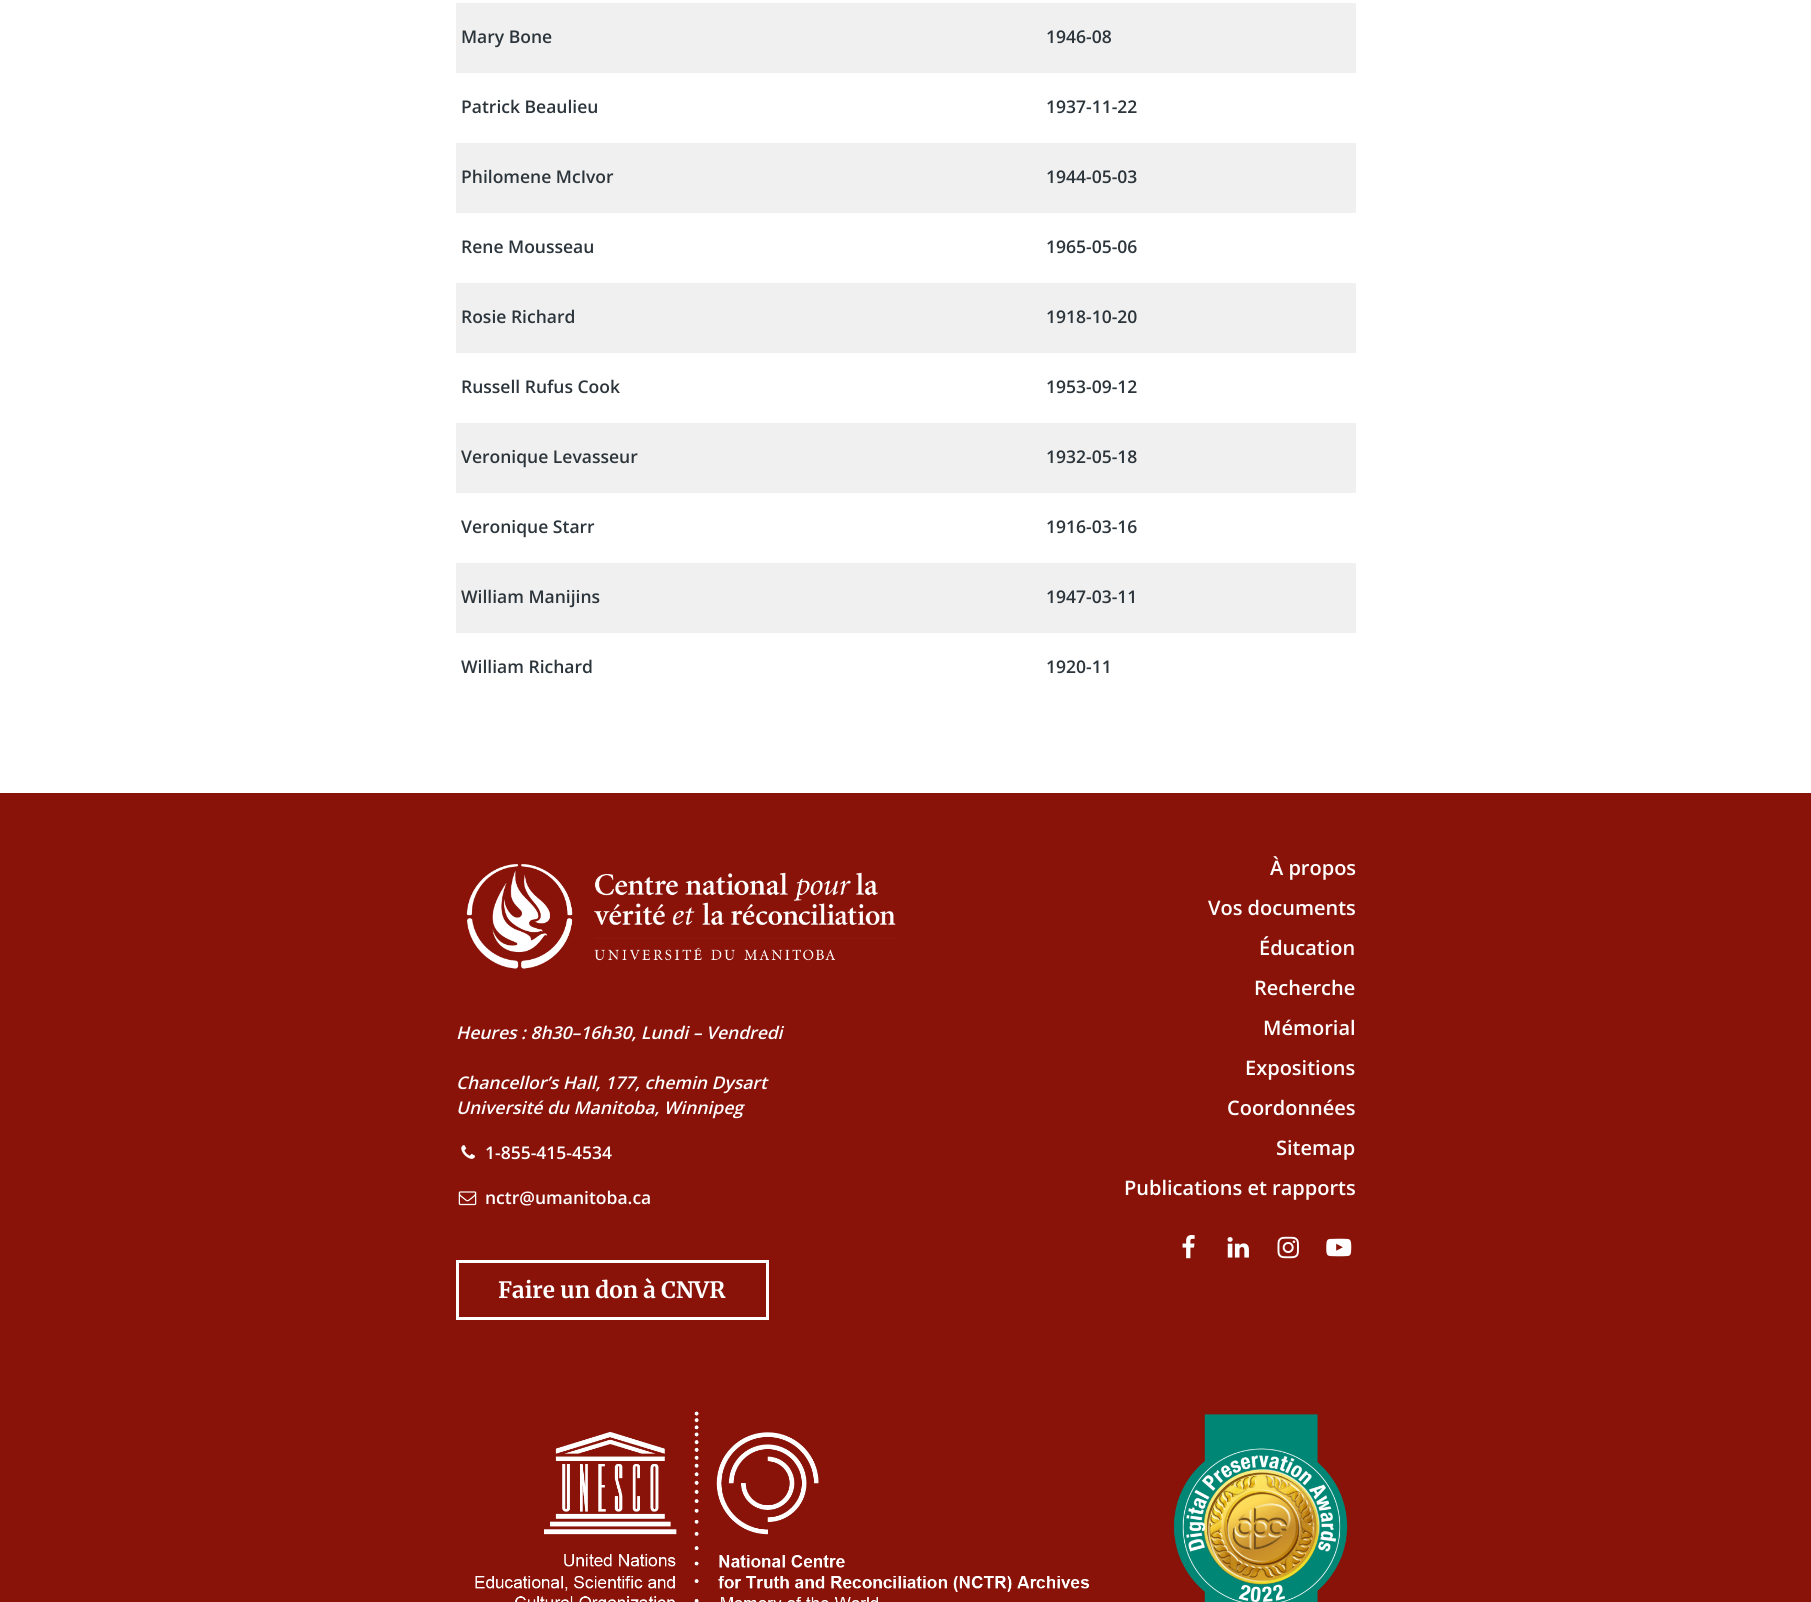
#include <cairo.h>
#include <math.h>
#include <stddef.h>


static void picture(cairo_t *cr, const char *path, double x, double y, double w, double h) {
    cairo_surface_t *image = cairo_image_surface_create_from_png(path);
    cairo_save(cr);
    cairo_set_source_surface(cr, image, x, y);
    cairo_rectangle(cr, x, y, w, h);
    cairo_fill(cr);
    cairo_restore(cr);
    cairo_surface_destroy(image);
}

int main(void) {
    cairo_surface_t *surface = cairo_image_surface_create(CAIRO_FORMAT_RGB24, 1811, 1602);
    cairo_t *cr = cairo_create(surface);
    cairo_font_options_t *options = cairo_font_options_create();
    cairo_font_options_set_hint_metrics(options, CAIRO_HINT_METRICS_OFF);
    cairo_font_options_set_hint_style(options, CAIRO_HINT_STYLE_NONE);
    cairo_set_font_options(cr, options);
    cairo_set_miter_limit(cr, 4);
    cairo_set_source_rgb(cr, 1, 1, 1);
    cairo_paint(cr);
    cairo_set_source_rgb(cr, 0.941, 0.941, 0.941);
    cairo_rectangle(cr, 456, 3, 900, 70);
    cairo_fill(cr);
    cairo_select_font_face(cr, "Open Sans SemiBold", CAIRO_FONT_SLANT_NORMAL, CAIRO_FONT_WEIGHT_NORMAL);
    cairo_set_font_size(cr, 17.5);
    cairo_set_source_rgb(cr, 0.173, 0.208, 0.231);
    cairo_move_to(cr, 461, 43);
    cairo_show_text(cr, "Mary Bone");
    cairo_move_to(cr, 1046, 43);
    cairo_show_text(cr, "1946-08");
    cairo_move_to(cr, 461, 113);
    cairo_show_text(cr, "Patrick Beaulieu");
    cairo_move_to(cr, 1046, 113);
    cairo_show_text(cr, "1937-11-22");
    cairo_set_source_rgb(cr, 0.941, 0.941, 0.941);
    cairo_rectangle(cr, 456, 143, 900, 70);
    cairo_fill(cr);
    cairo_set_source_rgb(cr, 0.173, 0.208, 0.231);
    cairo_move_to(cr, 461, 183);
    cairo_show_text(cr, "Philomene McIvor");
    cairo_move_to(cr, 1046, 183);
    cairo_show_text(cr, "1944-05-03");
    cairo_move_to(cr, 461, 253);
    cairo_show_text(cr, "Rene Mousseau");
    cairo_move_to(cr, 1046, 253);
    cairo_show_text(cr, "1965-05-06");
    cairo_set_source_rgb(cr, 0.941, 0.941, 0.941);
    cairo_rectangle(cr, 456, 283, 900, 70);
    cairo_fill(cr);
    cairo_set_source_rgb(cr, 0.173, 0.208, 0.231);
    cairo_move_to(cr, 461, 323);
    cairo_show_text(cr, "Rosie Richard");
    cairo_move_to(cr, 1046, 323);
    cairo_show_text(cr, "1918-10-20");
    cairo_move_to(cr, 461, 393);
    cairo_show_text(cr, "Russell Rufus Cook");
    cairo_move_to(cr, 1046, 393);
    cairo_show_text(cr, "1953-09-12");
    cairo_set_source_rgb(cr, 0.941, 0.941, 0.941);
    cairo_rectangle(cr, 456, 423, 900, 70);
    cairo_fill(cr);
    cairo_set_source_rgb(cr, 0.173, 0.208, 0.231);
    cairo_move_to(cr, 461, 463);
    cairo_show_text(cr, "Veronique Levasseur");
    cairo_move_to(cr, 1046, 463);
    cairo_show_text(cr, "1932-05-18");
    cairo_move_to(cr, 461, 533);
    cairo_show_text(cr, "Veronique Starr");
    cairo_move_to(cr, 1046, 533);
    cairo_show_text(cr, "1916-03-16");
    cairo_set_source_rgb(cr, 0.941, 0.941, 0.941);
    cairo_rectangle(cr, 456, 563, 900, 70);
    cairo_fill(cr);
    cairo_set_source_rgb(cr, 0.173, 0.208, 0.231);
    cairo_move_to(cr, 461, 603);
    cairo_show_text(cr, "William Manijins");
    cairo_move_to(cr, 1046, 603);
    cairo_show_text(cr, "1947-03-11");
    cairo_move_to(cr, 461, 673);
    cairo_show_text(cr, "William Richard");
    cairo_move_to(cr, 1046, 673);
    cairo_show_text(cr, "1920-11");
    cairo_set_source_rgb(cr, 0.537, 0.078, 0.039);
    cairo_rectangle(cr, 0, 793, 1811, 809);
    cairo_fill(cr);
    picture(cr, "img1.png", 466, 864, 430, 105);
    cairo_select_font_face(cr, "Open Sans SemiBold", CAIRO_FONT_SLANT_ITALIC, CAIRO_FONT_WEIGHT_NORMAL);
    cairo_set_source_rgb(cr, 1, 1, 1);
    cairo_move_to(cr, 456, 1039);
    cairo_show_text(cr, "Heures : 8h30–16h30, Lundi – Vendredi");
    cairo_move_to(cr, 456, 1089);
    cairo_show_text(cr, "Chancellor’s Hall, 177, chemin Dysart");
    cairo_move_to(cr, 456, 1114);
    cairo_show_text(cr, "Université du Manitoba, Winnipeg");
    picture(cr, "img2.png", 461, 1145, 14, 14);
    cairo_select_font_face(cr, "Open Sans SemiBold", CAIRO_FONT_SLANT_NORMAL, CAIRO_FONT_WEIGHT_NORMAL);
    cairo_move_to(cr, 485, 1159);
    cairo_show_text(cr, "1-855-415-4534");
    picture(cr, "img3.png", 458, 1191, 19, 15);
    cairo_move_to(cr, 485, 1204);
    cairo_show_text(cr, "nctr@umanitoba.ca");
    cairo_rectangle(cr, 457.5, 1261.5, 310, 57);
    cairo_set_line_width(cr, 3);
    cairo_stroke(cr);
    cairo_select_font_face(cr, "Merriweather", CAIRO_FONT_SLANT_NORMAL, CAIRO_FONT_WEIGHT_BOLD);
    cairo_set_font_size(cr, 22.5);
    cairo_move_to(cr, 498, 1298);
    cairo_show_text(cr, "Faire un don à CNVR");
    cairo_select_font_face(cr, "Open Sans SemiBold", CAIRO_FONT_SLANT_NORMAL, CAIRO_FONT_WEIGHT_NORMAL);
    cairo_set_font_size(cr, 20);
    cairo_move_to(cr, 1270, 875);
    cairo_show_text(cr, "À propos");
    cairo_move_to(cr, 1208, 915);
    cairo_show_text(cr, "Vos documents");
    cairo_move_to(cr, 1259, 955);
    cairo_show_text(cr, "Éducation");
    cairo_move_to(cr, 1254, 995);
    cairo_show_text(cr, "Recherche");
    cairo_move_to(cr, 1263, 1035);
    cairo_show_text(cr, "Mémorial");
    cairo_move_to(cr, 1245, 1075);
    cairo_show_text(cr, "Expositions");
    cairo_move_to(cr, 1227, 1115);
    cairo_show_text(cr, "Coordonnées");
    cairo_move_to(cr, 1276, 1155);
    cairo_show_text(cr, "Sitemap");
    cairo_move_to(cr, 1124, 1195);
    cairo_show_text(cr, "Publications et rapports");
    picture(cr, "img4.png", 1182, 1235, 13, 24);
    picture(cr, "img5.png", 1227, 1237, 22, 21);
    picture(cr, "img6.png", 1277, 1236, 22, 23);
    picture(cr, "img7.png", 1326, 1238, 26, 19);
    picture(cr, "img8.png", 475, 1411, 614, 191);
    picture(cr, "img9.png", 1173, 1414, 175, 188);
    cairo_surface_write_to_png(surface, "page.png");
    cairo_font_options_destroy(options);
    cairo_destroy(cr);
    cairo_surface_destroy(surface);
    return 0;
}
